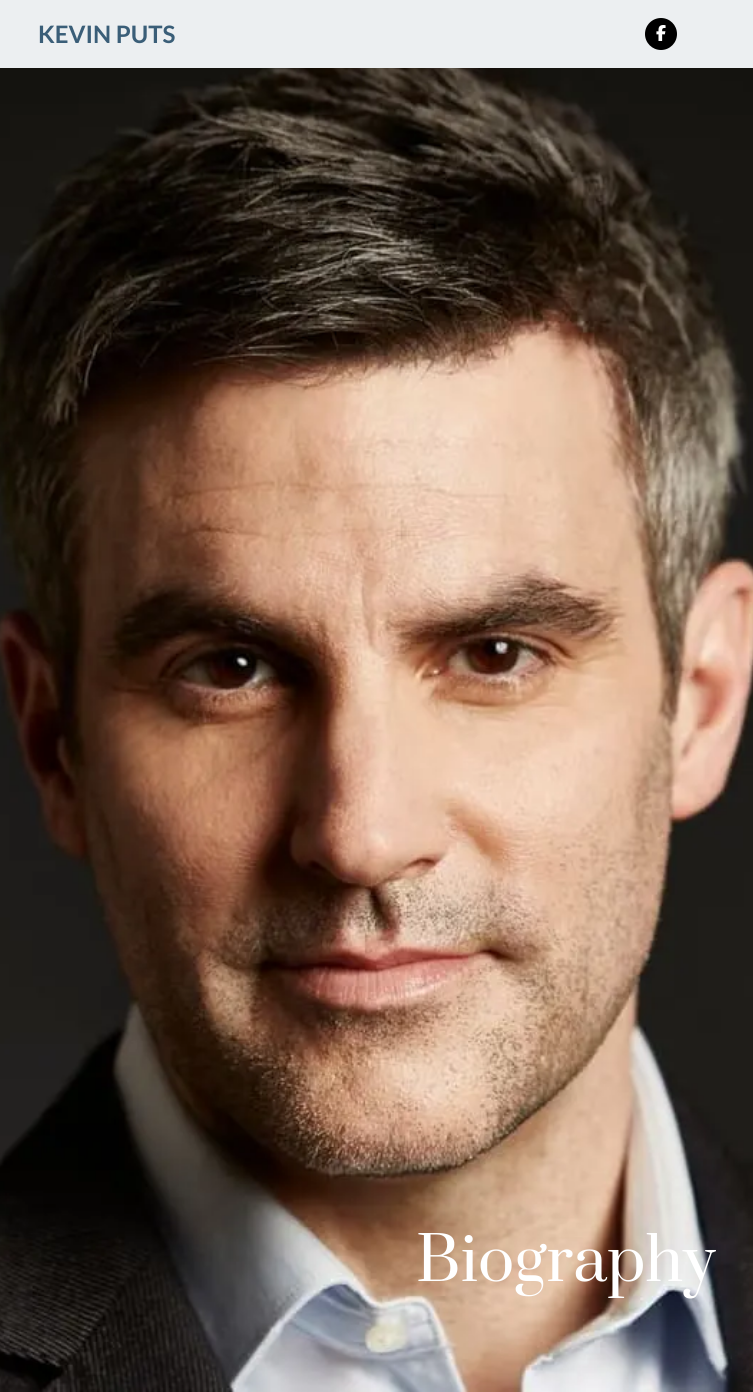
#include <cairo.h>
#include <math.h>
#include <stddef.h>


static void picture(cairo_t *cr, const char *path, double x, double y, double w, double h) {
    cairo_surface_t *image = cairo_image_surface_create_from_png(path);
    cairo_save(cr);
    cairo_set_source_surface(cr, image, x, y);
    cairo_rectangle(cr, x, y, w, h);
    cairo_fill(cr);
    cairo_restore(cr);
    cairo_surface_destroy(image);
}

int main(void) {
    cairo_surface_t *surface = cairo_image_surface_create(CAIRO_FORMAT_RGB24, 753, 1392);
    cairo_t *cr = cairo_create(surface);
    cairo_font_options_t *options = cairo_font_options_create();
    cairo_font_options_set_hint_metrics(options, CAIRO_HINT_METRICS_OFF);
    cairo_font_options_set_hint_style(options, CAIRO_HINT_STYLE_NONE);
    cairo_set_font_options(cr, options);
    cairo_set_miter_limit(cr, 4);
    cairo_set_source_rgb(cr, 1, 1, 1);
    cairo_paint(cr);
    cairo_set_source_rgb(cr, 0.925, 0.937, 0.945);
    cairo_rectangle(cr, 0, 0, 753, 68);
    cairo_fill(cr);
    cairo_select_font_face(cr, "Lato", CAIRO_FONT_SLANT_NORMAL, CAIRO_FONT_WEIGHT_BOLD);
    cairo_set_font_size(cr, 24);
    cairo_set_source_rgb(cr, 0.227, 0.369, 0.471);
    cairo_move_to(cr, 38, 43);
    cairo_show_text(cr, "KEVIN PUTS");
    cairo_set_source_rgb(cr, 0, 0, 0);
    cairo_new_path(cr);
    cairo_arc(cr, 661, 34, 16, 0, 2 * M_PI);
    cairo_fill(cr);
    picture(cr, "img1.png", 656, 25, 10, 16);
    picture(cr, "img2.png", 0, 68, 753, 1324);
    cairo_select_font_face(cr, "Prata", CAIRO_FONT_SLANT_NORMAL, CAIRO_FONT_WEIGHT_NORMAL);
    cairo_set_font_size(cr, 60);
    cairo_set_source_rgb(cr, 1, 1, 1);
    cairo_move_to(cr, 416, 1281);
    cairo_show_text(cr, "Biography");
    cairo_surface_write_to_png(surface, "page.png");
    cairo_font_options_destroy(options);
    cairo_destroy(cr);
    cairo_surface_destroy(surface);
    return 0;
}
